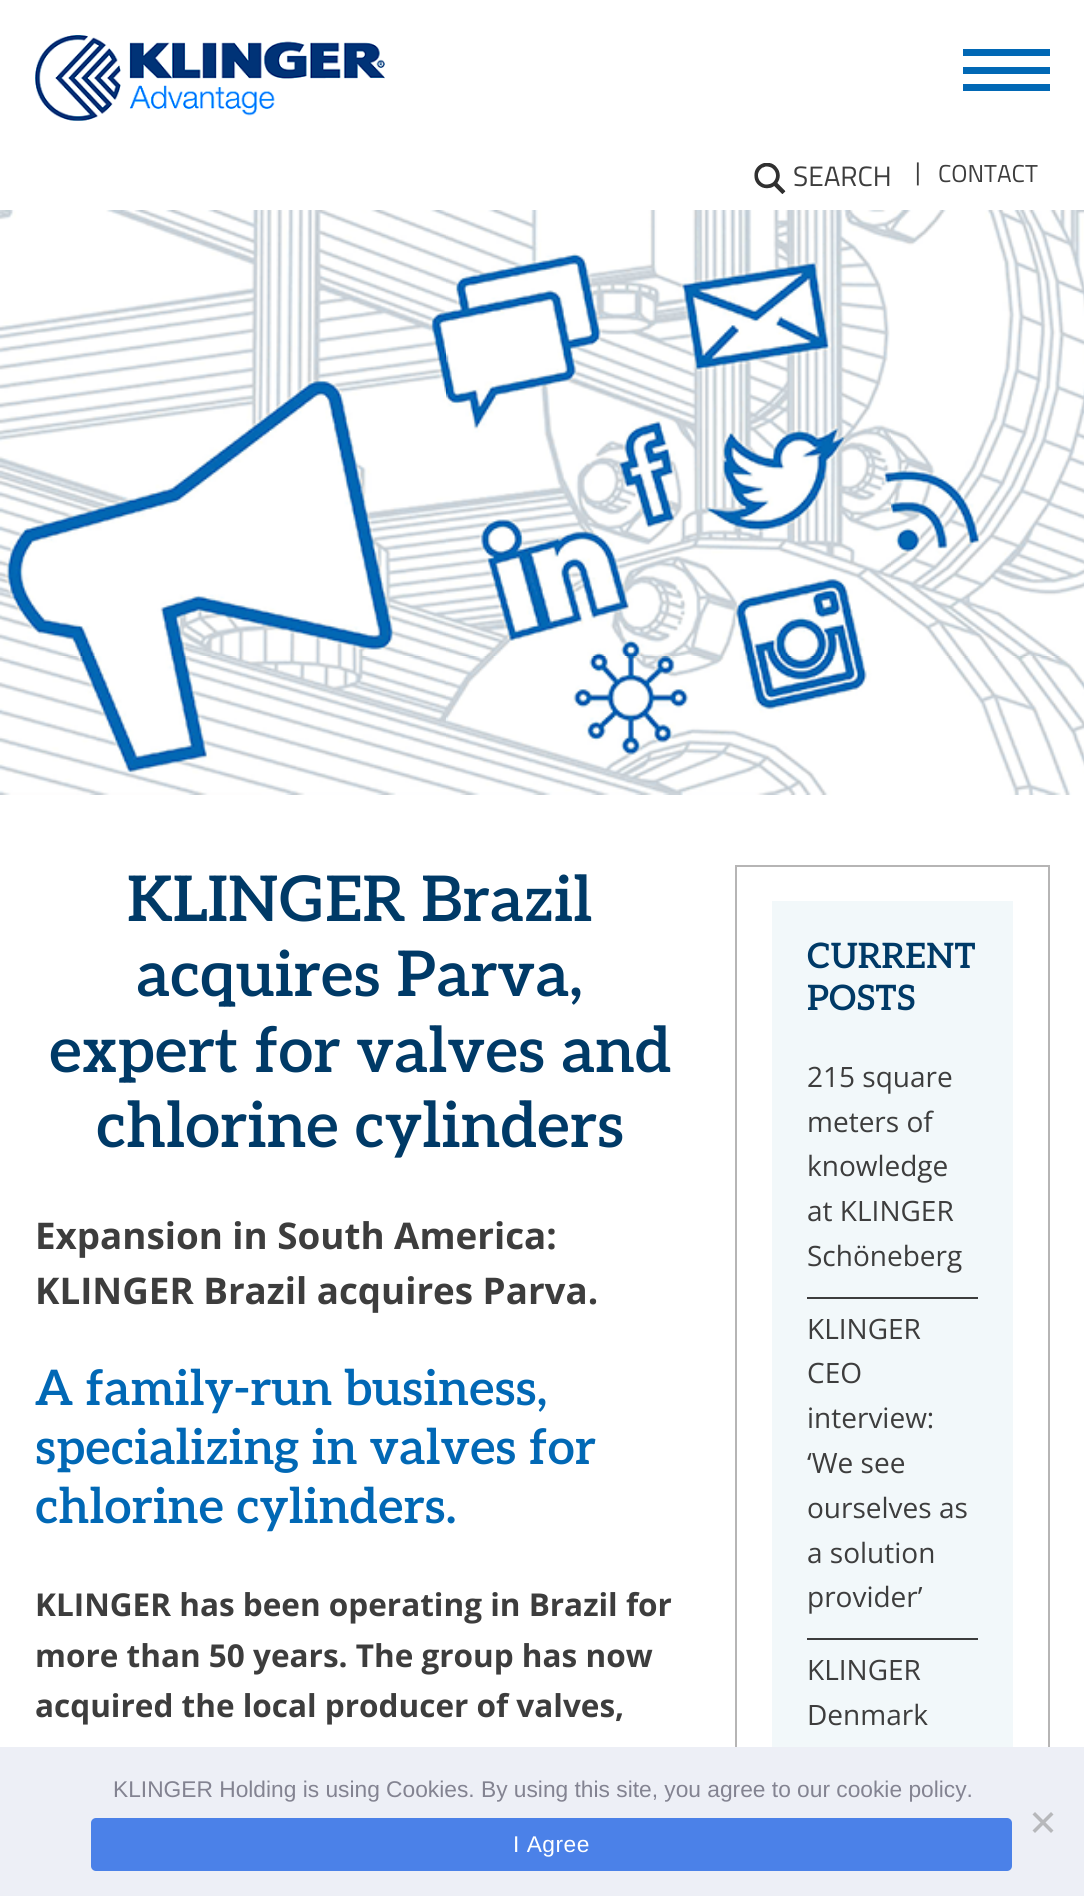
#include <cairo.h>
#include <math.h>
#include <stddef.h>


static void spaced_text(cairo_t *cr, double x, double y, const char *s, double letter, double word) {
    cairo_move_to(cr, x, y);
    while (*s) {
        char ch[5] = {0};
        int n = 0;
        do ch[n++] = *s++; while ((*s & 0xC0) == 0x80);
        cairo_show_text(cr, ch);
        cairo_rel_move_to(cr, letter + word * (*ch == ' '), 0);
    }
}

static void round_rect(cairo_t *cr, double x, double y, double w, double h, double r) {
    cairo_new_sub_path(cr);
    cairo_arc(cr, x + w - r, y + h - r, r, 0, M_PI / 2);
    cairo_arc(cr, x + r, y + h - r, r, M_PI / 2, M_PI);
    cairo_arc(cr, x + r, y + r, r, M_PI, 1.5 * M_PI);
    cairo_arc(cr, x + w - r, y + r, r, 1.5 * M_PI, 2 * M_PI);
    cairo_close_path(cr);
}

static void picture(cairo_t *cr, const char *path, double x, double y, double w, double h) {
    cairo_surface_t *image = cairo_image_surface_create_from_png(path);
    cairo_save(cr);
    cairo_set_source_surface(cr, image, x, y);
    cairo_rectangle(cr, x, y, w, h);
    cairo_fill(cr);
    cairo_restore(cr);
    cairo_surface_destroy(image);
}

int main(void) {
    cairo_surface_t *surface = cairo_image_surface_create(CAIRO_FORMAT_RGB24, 1084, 1896);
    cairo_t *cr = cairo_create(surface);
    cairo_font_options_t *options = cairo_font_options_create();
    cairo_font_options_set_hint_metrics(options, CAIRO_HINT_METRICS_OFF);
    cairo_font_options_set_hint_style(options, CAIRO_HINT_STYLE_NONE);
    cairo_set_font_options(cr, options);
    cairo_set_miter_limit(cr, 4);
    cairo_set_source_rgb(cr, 1, 1, 1);
    cairo_paint(cr);
    cairo_set_source_rgb(cr, 0.004, 0.408, 0.71);
    cairo_rectangle(cr, 963, 67, 87, 7);
    cairo_fill(cr);
    cairo_rectangle(cr, 963, 49, 87, 7);
    cairo_fill(cr);
    cairo_rectangle(cr, 963, 84, 87, 7);
    cairo_fill(cr);
    picture(cr, "img1.png", 35, 35, 350, 86);
    picture(cr, "img2.png", 754, 163, 32, 31);
    cairo_select_font_face(cr, "Titillium Web", CAIRO_FONT_SLANT_NORMAL, CAIRO_FONT_WEIGHT_NORMAL);
    cairo_set_font_size(cr, 28);
    cairo_set_source_rgb(cr, 0.239, 0.239, 0.239);
    cairo_move_to(cr, 793, 186);
    cairo_show_text(cr, "SEARCH");
    cairo_set_font_size(cr, 24.5);
    cairo_move_to(cr, 915, 180);
    cairo_show_text(cr, "|");
    cairo_move_to(cr, 938, 182);
    cairo_show_text(cr, "CONTACT");
    picture(cr, "img3.png", 0, 210, 1084, 585);
    cairo_select_font_face(cr, "Aleo SemiBold", CAIRO_FONT_SLANT_NORMAL, CAIRO_FONT_WEIGHT_NORMAL);
    cairo_set_font_size(cr, 63);
    cairo_set_source_rgb(cr, 0, 0.227, 0.404);
    cairo_move_to(cr, 127, 921);
    cairo_show_text(cr, "KLINGER Brazil");
    cairo_move_to(cr, 136, 996);
    cairo_show_text(cr, "acquires Parva,");
    cairo_move_to(cr, 49, 1072);
    cairo_show_text(cr, "expert for valves and");
    cairo_move_to(cr, 96, 1147);
    cairo_show_text(cr, "chlorine cylinders");
    cairo_select_font_face(cr, "Open Sans", CAIRO_FONT_SLANT_NORMAL, CAIRO_FONT_WEIGHT_BOLD);
    cairo_set_font_size(cr, 36.75);
    cairo_set_source_rgb(cr, 0.239, 0.239, 0.239);
    cairo_move_to(cr, 35, 1249);
    cairo_show_text(cr, "Expansion in South America:");
    cairo_move_to(cr, 35, 1304);
    cairo_show_text(cr, "KLINGER Brazil acquires Parva.");
    cairo_select_font_face(cr, "Aleo SemiBold", CAIRO_FONT_SLANT_NORMAL, CAIRO_FONT_WEIGHT_NORMAL);
    cairo_set_font_size(cr, 49);
    cairo_set_source_rgb(cr, 0.004, 0.408, 0.71);
    cairo_move_to(cr, 35, 1405);
    cairo_show_text(cr, "A family-run business,");
    cairo_move_to(cr, 35, 1464);
    cairo_show_text(cr, "specializing in valves for");
    cairo_move_to(cr, 35, 1523);
    cairo_show_text(cr, "chlorine cylinders.");
    cairo_select_font_face(cr, "Open Sans", CAIRO_FONT_SLANT_NORMAL, CAIRO_FONT_WEIGHT_BOLD);
    cairo_set_font_size(cr, 31.5);
    cairo_set_source_rgb(cr, 0.239, 0.239, 0.239);
    cairo_move_to(cr, 35, 1616);
    cairo_show_text(cr, "KLINGER has been operating in Brazil for");
    cairo_move_to(cr, 35, 1667);
    cairo_show_text(cr, "more than 50 years. The group has now");
    cairo_move_to(cr, 35, 1717);
    cairo_show_text(cr, "acquired the local producer of valves,");
    cairo_rectangle(cr, 736, 866, 313, 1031);
    cairo_set_source_rgb(cr, 0.714, 0.71, 0.71);
    cairo_stroke(cr);
    cairo_set_source_rgb(cr, 0.949, 0.969, 0.98);
    cairo_rectangle(cr, 772, 901, 241, 846);
    cairo_fill(cr);
    cairo_select_font_face(cr, "Aleo SemiBold", CAIRO_FONT_SLANT_NORMAL, CAIRO_FONT_WEIGHT_NORMAL);
    cairo_set_font_size(cr, 35);
    cairo_set_source_rgb(cr, 0, 0.227, 0.404);
    cairo_move_to(cr, 807, 968);
    cairo_show_text(cr, "CURRENT");
    cairo_move_to(cr, 807, 1010);
    cairo_show_text(cr, "POSTS");
    cairo_set_source_rgb(cr, 0.239, 0.239, 0.239);
    cairo_rectangle(cr, 807, 1297, 171, 2);
    cairo_fill(cr);
    cairo_select_font_face(cr, "Open Sans", CAIRO_FONT_SLANT_NORMAL, CAIRO_FONT_WEIGHT_NORMAL);
    cairo_set_font_size(cr, 28);
    cairo_move_to(cr, 807, 1087);
    cairo_show_text(cr, "215 square");
    cairo_move_to(cr, 807, 1132);
    cairo_show_text(cr, "meters of");
    cairo_move_to(cr, 807, 1176);
    cairo_show_text(cr, "knowledge");
    cairo_move_to(cr, 807, 1221);
    cairo_show_text(cr, "at KLINGER");
    cairo_move_to(cr, 807, 1266);
    cairo_show_text(cr, "Schöneberg");
    cairo_rectangle(cr, 807, 1638, 171, 2);
    cairo_fill(cr);
    cairo_move_to(cr, 807, 1339);
    cairo_show_text(cr, "KLINGER");
    cairo_move_to(cr, 807, 1383);
    cairo_show_text(cr, "CEO");
    cairo_move_to(cr, 807, 1428);
    cairo_show_text(cr, "interview:");
    cairo_move_to(cr, 807, 1473);
    cairo_show_text(cr, "‘We see");
    cairo_move_to(cr, 807, 1518);
    cairo_show_text(cr, "ourselves as");
    cairo_move_to(cr, 807, 1563);
    cairo_show_text(cr, "a solution");
    cairo_move_to(cr, 807, 1607);
    cairo_show_text(cr, "provider’");
    cairo_move_to(cr, 807, 1680);
    cairo_show_text(cr, "KLINGER");
    cairo_move_to(cr, 807, 1725);
    cairo_show_text(cr, "Denmark");
    cairo_set_source_rgb(cr, 0.929, 0.937, 0.961);
    cairo_rectangle(cr, 0, 1747, 1084, 149);
    cairo_fill(cr);
    cairo_select_font_face(cr, "Liberation Sans", CAIRO_FONT_SLANT_NORMAL, CAIRO_FONT_WEIGHT_NORMAL);
    cairo_set_font_size(cr, 22.75);
    cairo_set_source_rgb(cr, 0.514, 0.514, 0.569);
    cairo_move_to(cr, 113, 1797);
    cairo_show_text(cr, "KLINGER Holding is using Cookies. By using this site, you agree to our cookie policy.");
    cairo_set_source_rgb(cr, 0.718, 0.722, 0.733);
    cairo_new_path(cr);
    cairo_move_to(cr, 1051, 1812);
    cairo_line_to(cr, 1053.5, 1814.5);
    cairo_line_to(cr, 1035, 1833);
    cairo_line_to(cr, 1032.5, 1830.5);
    cairo_close_path(cr);
    cairo_fill(cr);
    cairo_new_path(cr);
    cairo_move_to(cr, 1032.5, 1814.5);
    cairo_line_to(cr, 1035, 1812);
    cairo_line_to(cr, 1053.5, 1830.5);
    cairo_line_to(cr, 1051, 1833);
    cairo_close_path(cr);
    cairo_fill(cr);
    cairo_set_source_rgb(cr, 0.294, 0.506, 0.91);
    round_rect(cr, 91, 1818, 921, 53, 5);
    cairo_fill(cr);
    cairo_set_source_rgb(cr, 1, 1, 1);
    spaced_text(cr, 513, 1852, "I Agree", 0.5, 0);
    cairo_surface_write_to_png(surface, "page.png");
    cairo_font_options_destroy(options);
    cairo_destroy(cr);
    cairo_surface_destroy(surface);
    return 0;
}
